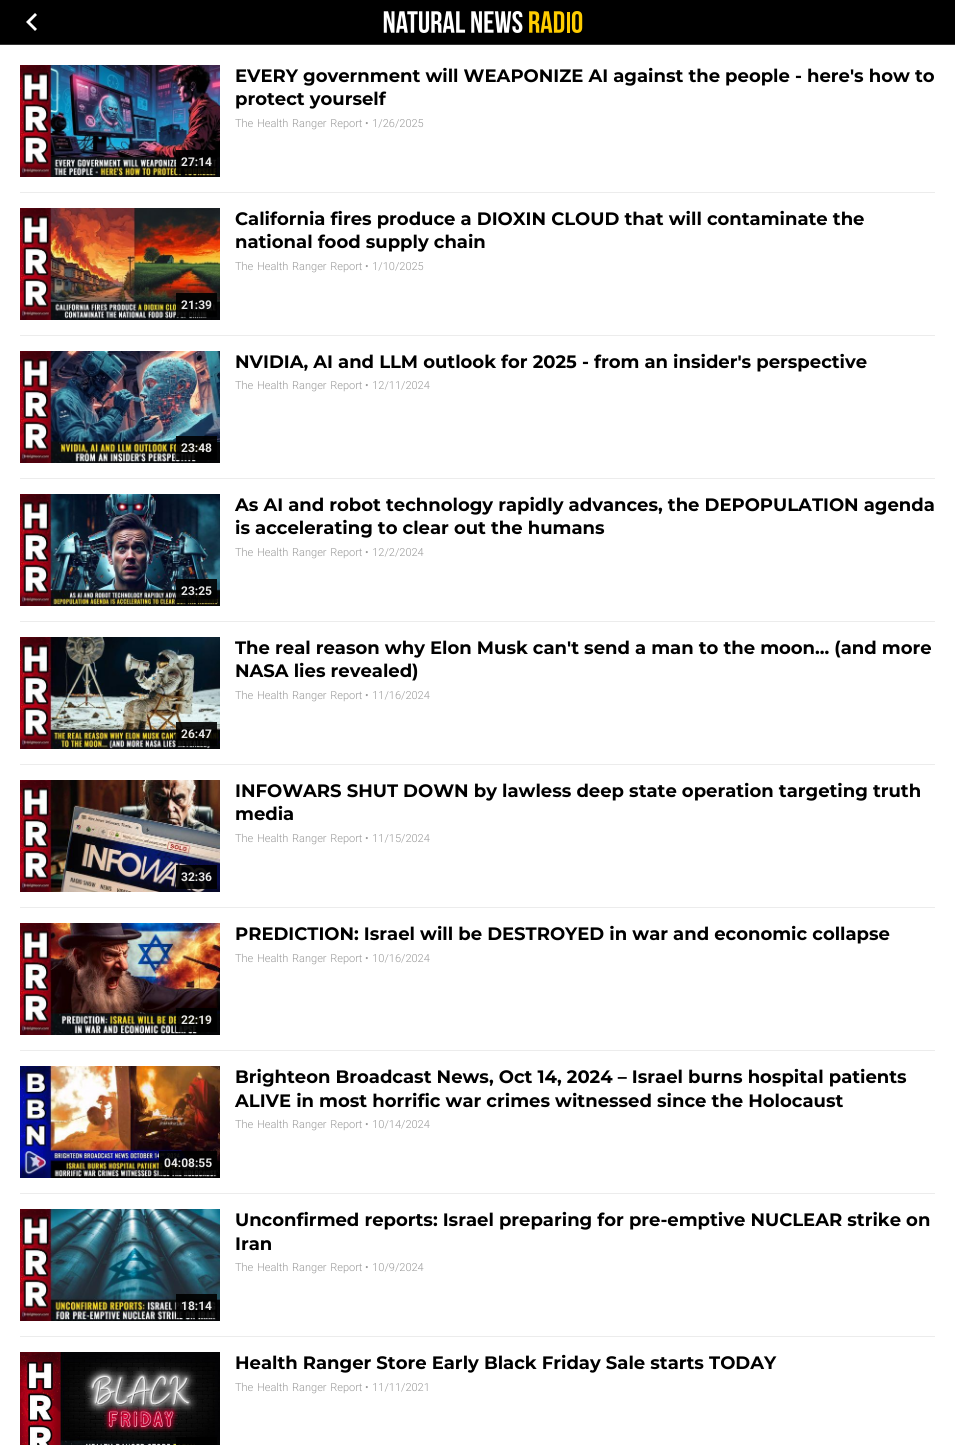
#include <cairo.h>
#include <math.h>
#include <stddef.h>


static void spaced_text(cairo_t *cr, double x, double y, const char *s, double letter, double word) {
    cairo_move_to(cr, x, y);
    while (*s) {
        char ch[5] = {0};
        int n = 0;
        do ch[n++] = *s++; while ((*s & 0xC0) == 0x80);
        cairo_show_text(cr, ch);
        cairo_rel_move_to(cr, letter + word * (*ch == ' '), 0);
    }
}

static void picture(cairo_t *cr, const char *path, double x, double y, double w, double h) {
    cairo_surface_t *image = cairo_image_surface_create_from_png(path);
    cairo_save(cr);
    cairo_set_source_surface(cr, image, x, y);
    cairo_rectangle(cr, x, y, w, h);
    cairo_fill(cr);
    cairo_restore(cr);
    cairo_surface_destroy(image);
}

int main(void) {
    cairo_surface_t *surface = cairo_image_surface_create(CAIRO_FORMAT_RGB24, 955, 1445);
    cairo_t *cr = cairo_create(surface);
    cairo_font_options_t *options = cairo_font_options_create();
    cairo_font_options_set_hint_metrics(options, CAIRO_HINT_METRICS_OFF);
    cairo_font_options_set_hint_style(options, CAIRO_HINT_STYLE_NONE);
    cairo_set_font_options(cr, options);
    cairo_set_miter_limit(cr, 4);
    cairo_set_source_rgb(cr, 0, 0, 0);
    cairo_paint(cr);
    cairo_set_source_rgb(cr, 0.2, 0.2, 0.2);
    cairo_rectangle(cr, 0, 44, 955, 1);
    cairo_fill(cr);
    cairo_set_source_rgb(cr, 1, 1, 1);
    cairo_new_path(cr);
    cairo_move_to(cr, 30, 22);
    cairo_line_to(cr, 37, 15);
    cairo_line_to(cr, 35, 13);
    cairo_line_to(cr, 26, 22);
    cairo_line_to(cr, 35, 31);
    cairo_line_to(cr, 37, 29);
    cairo_close_path(cr);
    cairo_fill(cr);
    picture(cr, "img1.png", 383, 11, 200, 22);
    cairo_rectangle(cr, 0, 45, 955, 1400);
    cairo_fill(cr);
    cairo_set_source_rgb(cr, 0.925, 0.925, 0.925);
    cairo_rectangle(cr, 20, 192, 915, 1);
    cairo_fill(cr);
    cairo_select_font_face(cr, "Montserrat", CAIRO_FONT_SLANT_NORMAL, CAIRO_FONT_WEIGHT_BOLD);
    cairo_set_font_size(cr, 18);
    cairo_set_source_rgb(cr, 0, 0, 0);
    cairo_move_to(cr, 235, 82);
    cairo_show_text(cr, "EVERY government will WEAPONIZE AI against the people - here's how to");
    cairo_move_to(cr, 235, 105);
    cairo_show_text(cr, "protect yourself");
    cairo_select_font_face(cr, "Roboto Light", CAIRO_FONT_SLANT_NORMAL, CAIRO_FONT_WEIGHT_NORMAL);
    cairo_set_font_size(cr, 11);
    cairo_set_source_rgb(cr, 0.6, 0.6, 0.6);
    spaced_text(cr, 235, 127, "The Health Ranger Report", 0, 1);
    spaced_text(cr, 365, 127, "• 1/26/2025", 0, 1);
    picture(cr, "img2.png", 20, 65, 200, 112);
    cairo_set_source_rgba(cr, 0, 0, 0, 0.9);
    cairo_rectangle(cr, 176, 150, 41, 24);
    cairo_fill(cr);
    cairo_select_font_face(cr, "Roboto", CAIRO_FONT_SLANT_NORMAL, CAIRO_FONT_WEIGHT_BOLD);
    cairo_set_font_size(cr, 12);
    cairo_set_source_rgb(cr, 0.902, 0.902, 0.902);
    cairo_move_to(cr, 181, 166);
    cairo_show_text(cr, "27:14");
    cairo_set_source_rgb(cr, 0.925, 0.925, 0.925);
    cairo_rectangle(cr, 20, 335, 915, 1);
    cairo_fill(cr);
    cairo_select_font_face(cr, "Montserrat", CAIRO_FONT_SLANT_NORMAL, CAIRO_FONT_WEIGHT_BOLD);
    cairo_set_font_size(cr, 18);
    cairo_set_source_rgb(cr, 0, 0, 0);
    cairo_move_to(cr, 235, 225);
    cairo_show_text(cr, "California fires produce a DIOXIN CLOUD that will contaminate the");
    cairo_move_to(cr, 235, 248);
    cairo_show_text(cr, "national food supply chain");
    cairo_select_font_face(cr, "Roboto Light", CAIRO_FONT_SLANT_NORMAL, CAIRO_FONT_WEIGHT_NORMAL);
    cairo_set_font_size(cr, 11);
    cairo_set_source_rgb(cr, 0.6, 0.6, 0.6);
    spaced_text(cr, 235, 270, "The Health Ranger Report", 0, 1);
    spaced_text(cr, 365, 270, "• 1/10/2025", 0, 1);
    picture(cr, "img3.png", 20, 208, 200, 112);
    cairo_set_source_rgba(cr, 0, 0, 0, 0.9);
    cairo_rectangle(cr, 176, 293, 41, 24);
    cairo_fill(cr);
    cairo_select_font_face(cr, "Roboto", CAIRO_FONT_SLANT_NORMAL, CAIRO_FONT_WEIGHT_BOLD);
    cairo_set_font_size(cr, 12);
    cairo_set_source_rgb(cr, 0.902, 0.902, 0.902);
    cairo_move_to(cr, 181, 309);
    cairo_show_text(cr, "21:39");
    cairo_set_source_rgb(cr, 0.925, 0.925, 0.925);
    cairo_rectangle(cr, 20, 478, 915, 1);
    cairo_fill(cr);
    cairo_select_font_face(cr, "Montserrat", CAIRO_FONT_SLANT_NORMAL, CAIRO_FONT_WEIGHT_BOLD);
    cairo_set_font_size(cr, 18);
    cairo_set_source_rgb(cr, 0, 0, 0);
    cairo_move_to(cr, 235, 368);
    cairo_show_text(cr, "NVIDIA, AI and LLM outlook for 2025 - from an insider's perspective");
    cairo_select_font_face(cr, "Roboto Light", CAIRO_FONT_SLANT_NORMAL, CAIRO_FONT_WEIGHT_NORMAL);
    cairo_set_font_size(cr, 11);
    cairo_set_source_rgb(cr, 0.6, 0.6, 0.6);
    spaced_text(cr, 235, 389, "The Health Ranger Report", 0, 1);
    spaced_text(cr, 365, 389, "• 12/11/2024", 0, 1);
    picture(cr, "img4.png", 20, 351, 200, 112);
    cairo_set_source_rgba(cr, 0, 0, 0, 0.9);
    cairo_rectangle(cr, 176, 436, 41, 24);
    cairo_fill(cr);
    cairo_select_font_face(cr, "Roboto", CAIRO_FONT_SLANT_NORMAL, CAIRO_FONT_WEIGHT_BOLD);
    cairo_set_font_size(cr, 12);
    cairo_set_source_rgb(cr, 0.902, 0.902, 0.902);
    cairo_move_to(cr, 181, 452);
    cairo_show_text(cr, "23:48");
    cairo_set_source_rgb(cr, 0.925, 0.925, 0.925);
    cairo_rectangle(cr, 20, 621, 915, 1);
    cairo_fill(cr);
    cairo_select_font_face(cr, "Montserrat", CAIRO_FONT_SLANT_NORMAL, CAIRO_FONT_WEIGHT_BOLD);
    cairo_set_font_size(cr, 18);
    cairo_set_source_rgb(cr, 0, 0, 0);
    cairo_move_to(cr, 235, 511);
    cairo_show_text(cr, "As AI and robot technology rapidly advances, the DEPOPULATION agenda");
    cairo_move_to(cr, 235, 534);
    cairo_show_text(cr, "is accelerating to clear out the humans");
    cairo_select_font_face(cr, "Roboto Light", CAIRO_FONT_SLANT_NORMAL, CAIRO_FONT_WEIGHT_NORMAL);
    cairo_set_font_size(cr, 11);
    cairo_set_source_rgb(cr, 0.6, 0.6, 0.6);
    spaced_text(cr, 235, 556, "The Health Ranger Report", 0, 1);
    spaced_text(cr, 365, 556, "• 12/2/2024", 0, 1);
    picture(cr, "img5.png", 20, 494, 200, 112);
    cairo_set_source_rgba(cr, 0, 0, 0, 0.9);
    cairo_rectangle(cr, 176, 579, 41, 24);
    cairo_fill(cr);
    cairo_select_font_face(cr, "Roboto", CAIRO_FONT_SLANT_NORMAL, CAIRO_FONT_WEIGHT_BOLD);
    cairo_set_font_size(cr, 12);
    cairo_set_source_rgb(cr, 0.902, 0.902, 0.902);
    cairo_move_to(cr, 181, 595);
    cairo_show_text(cr, "23:25");
    cairo_set_source_rgb(cr, 0.925, 0.925, 0.925);
    cairo_rectangle(cr, 20, 764, 915, 1);
    cairo_fill(cr);
    cairo_select_font_face(cr, "Montserrat", CAIRO_FONT_SLANT_NORMAL, CAIRO_FONT_WEIGHT_BOLD);
    cairo_set_font_size(cr, 18);
    cairo_set_source_rgb(cr, 0, 0, 0);
    cairo_move_to(cr, 235, 654);
    cairo_show_text(cr, "The real reason why Elon Musk can't send a man to the moon... (and more");
    cairo_move_to(cr, 235, 677);
    cairo_show_text(cr, "NASA lies revealed)");
    cairo_select_font_face(cr, "Roboto Light", CAIRO_FONT_SLANT_NORMAL, CAIRO_FONT_WEIGHT_NORMAL);
    cairo_set_font_size(cr, 11);
    cairo_set_source_rgb(cr, 0.6, 0.6, 0.6);
    spaced_text(cr, 235, 699, "The Health Ranger Report", 0, 1);
    spaced_text(cr, 365, 699, "• 11/16/2024", 0, 1);
    picture(cr, "img6.png", 20, 637, 200, 112);
    cairo_set_source_rgba(cr, 0, 0, 0, 0.9);
    cairo_rectangle(cr, 176, 722, 41, 24);
    cairo_fill(cr);
    cairo_select_font_face(cr, "Roboto", CAIRO_FONT_SLANT_NORMAL, CAIRO_FONT_WEIGHT_BOLD);
    cairo_set_font_size(cr, 12);
    cairo_set_source_rgb(cr, 0.902, 0.902, 0.902);
    cairo_move_to(cr, 181, 738);
    cairo_show_text(cr, "26:47");
    cairo_set_source_rgb(cr, 0.925, 0.925, 0.925);
    cairo_rectangle(cr, 20, 907, 915, 1);
    cairo_fill(cr);
    cairo_select_font_face(cr, "Montserrat", CAIRO_FONT_SLANT_NORMAL, CAIRO_FONT_WEIGHT_BOLD);
    cairo_set_font_size(cr, 18);
    cairo_set_source_rgb(cr, 0, 0, 0);
    cairo_move_to(cr, 235, 797);
    cairo_show_text(cr, "INFOWARS SHUT DOWN by lawless deep state operation targeting truth");
    cairo_move_to(cr, 235, 820);
    cairo_show_text(cr, "media");
    cairo_select_font_face(cr, "Roboto Light", CAIRO_FONT_SLANT_NORMAL, CAIRO_FONT_WEIGHT_NORMAL);
    cairo_set_font_size(cr, 11);
    cairo_set_source_rgb(cr, 0.6, 0.6, 0.6);
    spaced_text(cr, 235, 842, "The Health Ranger Report", 0, 1);
    spaced_text(cr, 365, 842, "• 11/15/2024", 0, 1);
    picture(cr, "img7.png", 20, 780, 200, 112);
    cairo_set_source_rgba(cr, 0, 0, 0, 0.9);
    cairo_rectangle(cr, 176, 865, 41, 24);
    cairo_fill(cr);
    cairo_select_font_face(cr, "Roboto", CAIRO_FONT_SLANT_NORMAL, CAIRO_FONT_WEIGHT_BOLD);
    cairo_set_font_size(cr, 12);
    cairo_set_source_rgb(cr, 0.902, 0.902, 0.902);
    cairo_move_to(cr, 181, 881);
    cairo_show_text(cr, "32:36");
    cairo_set_source_rgb(cr, 0.925, 0.925, 0.925);
    cairo_rectangle(cr, 20, 1050, 915, 1);
    cairo_fill(cr);
    cairo_select_font_face(cr, "Montserrat", CAIRO_FONT_SLANT_NORMAL, CAIRO_FONT_WEIGHT_BOLD);
    cairo_set_font_size(cr, 18);
    cairo_set_source_rgb(cr, 0, 0, 0);
    cairo_move_to(cr, 235, 940);
    cairo_show_text(cr, "PREDICTION: Israel will be DESTROYED in war and economic collapse");
    cairo_select_font_face(cr, "Roboto Light", CAIRO_FONT_SLANT_NORMAL, CAIRO_FONT_WEIGHT_NORMAL);
    cairo_set_font_size(cr, 11);
    cairo_set_source_rgb(cr, 0.6, 0.6, 0.6);
    spaced_text(cr, 235, 962, "The Health Ranger Report", 0, 1);
    spaced_text(cr, 365, 962, "• 10/16/2024", 0, 1);
    picture(cr, "img8.png", 20, 923, 200, 112);
    cairo_set_source_rgba(cr, 0, 0, 0, 0.9);
    cairo_rectangle(cr, 176, 1008, 41, 24);
    cairo_fill(cr);
    cairo_select_font_face(cr, "Roboto", CAIRO_FONT_SLANT_NORMAL, CAIRO_FONT_WEIGHT_BOLD);
    cairo_set_font_size(cr, 12);
    cairo_set_source_rgb(cr, 0.902, 0.902, 0.902);
    cairo_move_to(cr, 181, 1024);
    cairo_show_text(cr, "22:19");
    cairo_set_source_rgb(cr, 0.925, 0.925, 0.925);
    cairo_rectangle(cr, 20, 1193, 915, 1);
    cairo_fill(cr);
    cairo_select_font_face(cr, "Montserrat", CAIRO_FONT_SLANT_NORMAL, CAIRO_FONT_WEIGHT_BOLD);
    cairo_set_font_size(cr, 18);
    cairo_set_source_rgb(cr, 0, 0, 0);
    cairo_move_to(cr, 235, 1083);
    cairo_show_text(cr, "Brighteon Broadcast News, Oct 14, 2024 – Israel burns hospital patients");
    cairo_move_to(cr, 235, 1107);
    cairo_show_text(cr, "ALIVE in most horrific war crimes witnessed since the Holocaust");
    cairo_select_font_face(cr, "Roboto Light", CAIRO_FONT_SLANT_NORMAL, CAIRO_FONT_WEIGHT_NORMAL);
    cairo_set_font_size(cr, 11);
    cairo_set_source_rgb(cr, 0.6, 0.6, 0.6);
    spaced_text(cr, 235, 1128, "The Health Ranger Report", 0, 1);
    spaced_text(cr, 365, 1128, "• 10/14/2024", 0, 1);
    picture(cr, "img9.png", 20, 1066, 200, 112);
    cairo_set_source_rgba(cr, 0, 0, 0, 0.9);
    cairo_rectangle(cr, 159, 1151, 58, 24);
    cairo_fill(cr);
    cairo_select_font_face(cr, "Roboto", CAIRO_FONT_SLANT_NORMAL, CAIRO_FONT_WEIGHT_BOLD);
    cairo_set_font_size(cr, 12);
    cairo_set_source_rgb(cr, 0.902, 0.902, 0.902);
    cairo_move_to(cr, 164, 1167);
    cairo_show_text(cr, "04:08:55");
    cairo_set_source_rgb(cr, 0.925, 0.925, 0.925);
    cairo_rectangle(cr, 20, 1336, 915, 1);
    cairo_fill(cr);
    cairo_select_font_face(cr, "Montserrat", CAIRO_FONT_SLANT_NORMAL, CAIRO_FONT_WEIGHT_BOLD);
    cairo_set_font_size(cr, 18);
    cairo_set_source_rgb(cr, 0, 0, 0);
    cairo_move_to(cr, 235, 1226);
    cairo_show_text(cr, "Unconfirmed reports: Israel preparing for pre-emptive NUCLEAR strike on");
    cairo_move_to(cr, 235, 1250);
    cairo_show_text(cr, "Iran");
    cairo_select_font_face(cr, "Roboto Light", CAIRO_FONT_SLANT_NORMAL, CAIRO_FONT_WEIGHT_NORMAL);
    cairo_set_font_size(cr, 11);
    cairo_set_source_rgb(cr, 0.6, 0.6, 0.6);
    spaced_text(cr, 235, 1271, "The Health Ranger Report", 0, 1);
    spaced_text(cr, 365, 1271, "• 10/9/2024", 0, 1);
    picture(cr, "img10.png", 20, 1209, 200, 112);
    cairo_set_source_rgba(cr, 0, 0, 0, 0.9);
    cairo_rectangle(cr, 176, 1294, 41, 24);
    cairo_fill(cr);
    cairo_select_font_face(cr, "Roboto", CAIRO_FONT_SLANT_NORMAL, CAIRO_FONT_WEIGHT_BOLD);
    cairo_set_font_size(cr, 12);
    cairo_set_source_rgb(cr, 0.902, 0.902, 0.902);
    cairo_move_to(cr, 181, 1310);
    cairo_show_text(cr, "18:14");
    picture(cr, "img11.png", 20, 1352, 200, 93);
    cairo_set_source_rgba(cr, 0, 0, 0, 0.9);
    cairo_rectangle(cr, 176, 1437, 41, 8);
    cairo_fill(cr);
    cairo_select_font_face(cr, "Montserrat", CAIRO_FONT_SLANT_NORMAL, CAIRO_FONT_WEIGHT_BOLD);
    cairo_set_font_size(cr, 18);
    cairo_set_source_rgb(cr, 0, 0, 0);
    cairo_move_to(cr, 235, 1369);
    cairo_show_text(cr, "Health Ranger Store Early Black Friday Sale starts TODAY");
    cairo_select_font_face(cr, "Roboto Light", CAIRO_FONT_SLANT_NORMAL, CAIRO_FONT_WEIGHT_NORMAL);
    cairo_set_font_size(cr, 11);
    cairo_set_source_rgb(cr, 0.6, 0.6, 0.6);
    spaced_text(cr, 235, 1391, "The Health Ranger Report", 0, 1);
    spaced_text(cr, 365, 1391, "• 11/11/2021", 0, 1);
    cairo_surface_write_to_png(surface, "page.png");
    cairo_font_options_destroy(options);
    cairo_destroy(cr);
    cairo_surface_destroy(surface);
    return 0;
}
